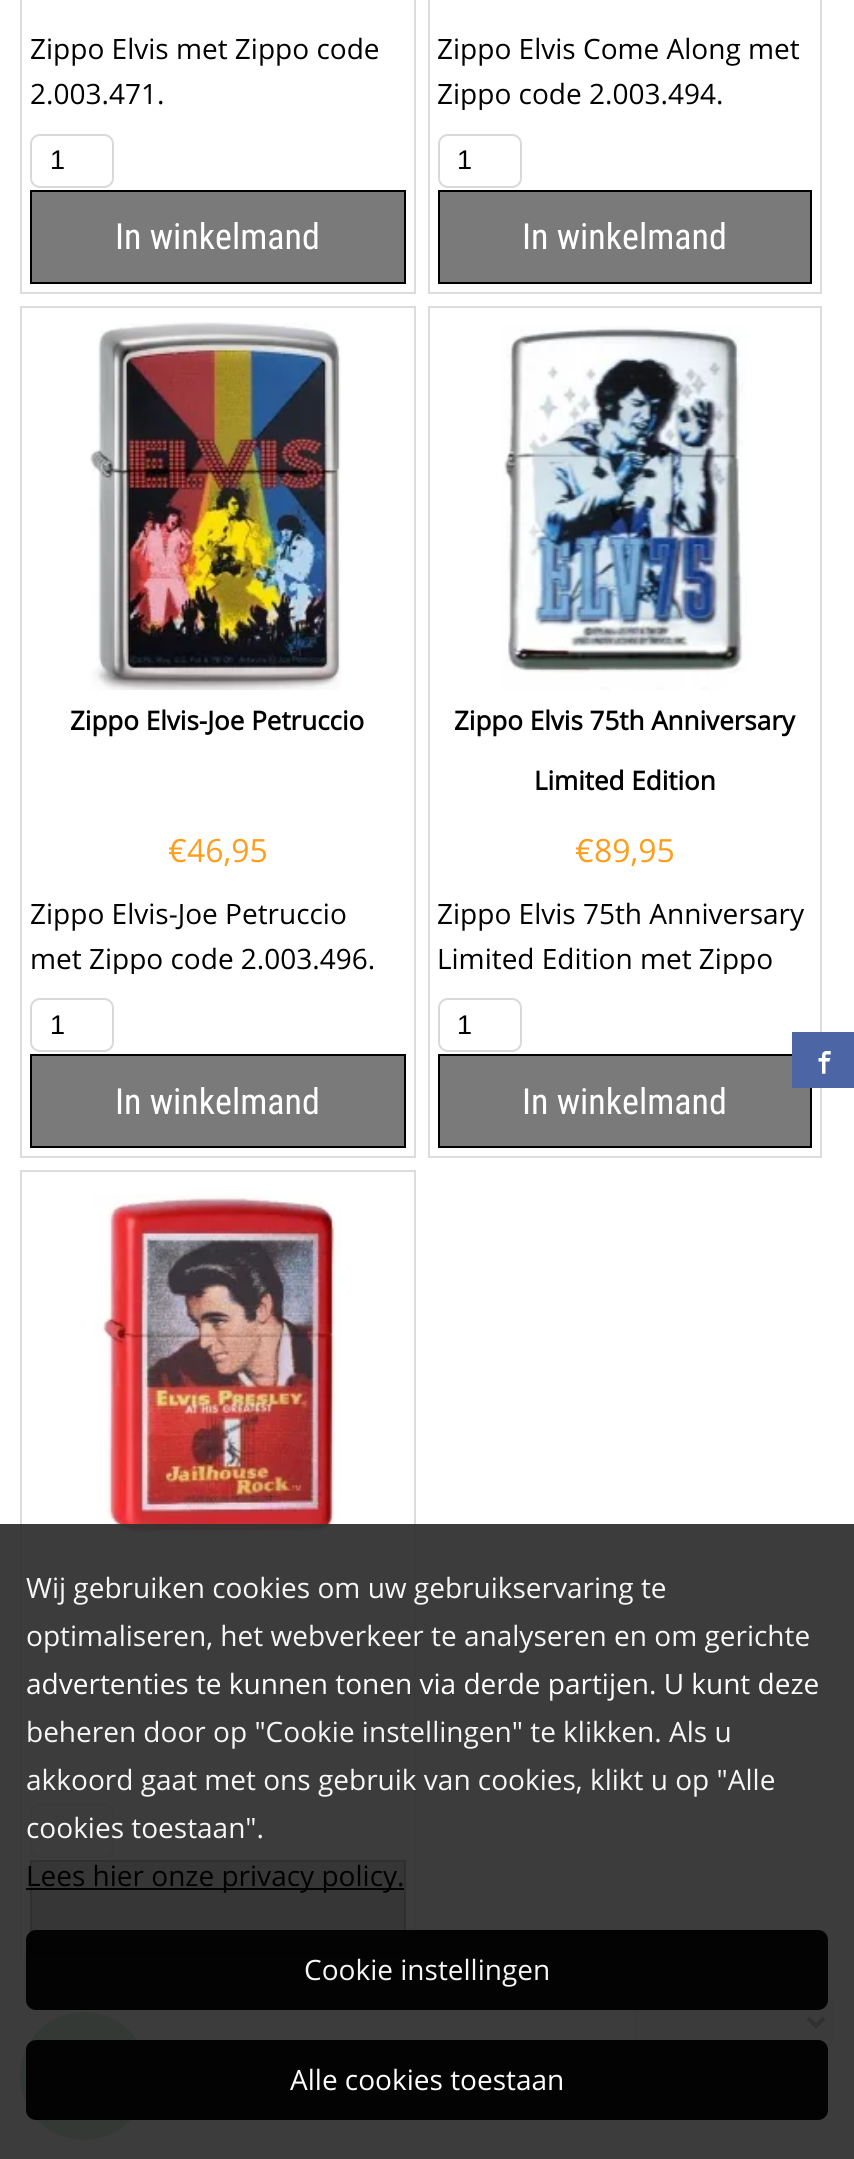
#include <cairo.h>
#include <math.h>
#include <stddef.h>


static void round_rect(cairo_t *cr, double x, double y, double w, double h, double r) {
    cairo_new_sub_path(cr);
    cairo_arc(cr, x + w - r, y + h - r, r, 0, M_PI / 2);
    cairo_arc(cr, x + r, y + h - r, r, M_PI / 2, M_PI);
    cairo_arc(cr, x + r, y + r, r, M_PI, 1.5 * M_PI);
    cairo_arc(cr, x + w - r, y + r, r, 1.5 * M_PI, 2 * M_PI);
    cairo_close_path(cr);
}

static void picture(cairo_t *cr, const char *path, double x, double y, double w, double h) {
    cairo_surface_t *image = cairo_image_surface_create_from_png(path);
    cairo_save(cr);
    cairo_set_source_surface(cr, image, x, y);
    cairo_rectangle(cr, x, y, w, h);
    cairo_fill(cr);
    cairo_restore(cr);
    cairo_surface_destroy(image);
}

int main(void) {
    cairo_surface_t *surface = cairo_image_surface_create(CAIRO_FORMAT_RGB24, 854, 2159);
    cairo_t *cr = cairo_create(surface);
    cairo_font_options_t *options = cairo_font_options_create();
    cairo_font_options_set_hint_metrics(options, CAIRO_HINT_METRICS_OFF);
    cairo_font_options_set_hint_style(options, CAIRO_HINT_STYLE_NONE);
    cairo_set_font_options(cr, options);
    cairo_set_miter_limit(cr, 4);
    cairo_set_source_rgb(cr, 1, 1, 1);
    cairo_paint(cr);
    cairo_rectangle(cr, 21, -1, 394, 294);
    cairo_set_source_rgb(cr, 0.863, 0.863, 0.863);
    cairo_stroke(cr);
    cairo_select_font_face(cr, "Open Sans", CAIRO_FONT_SLANT_NORMAL, CAIRO_FONT_WEIGHT_NORMAL);
    cairo_set_font_size(cr, 28);
    cairo_set_source_rgb(cr, 0, 0, 0);
    cairo_move_to(cr, 30, 59);
    cairo_show_text(cr, "Zippo Elvis met Zippo code");
    cairo_move_to(cr, 30, 104);
    cairo_show_text(cr, "2.003.471.");
    round_rect(cr, 31, 135, 82, 52, 9);
    cairo_set_source_rgb(cr, 0.851, 0.851, 0.851);
    cairo_stroke(cr);
    cairo_select_font_face(cr, "Liberation Sans", CAIRO_FONT_SLANT_NORMAL, CAIRO_FONT_WEIGHT_NORMAL);
    cairo_set_font_size(cr, 27);
    cairo_set_source_rgb(cr, 0, 0, 0);
    cairo_move_to(cr, 50, 169);
    cairo_show_text(cr, "1");
    cairo_set_source_rgb(cr, 0.478, 0.478, 0.478);
    cairo_rectangle(cr, 31, 191, 374, 92);
    cairo_fill_preserve(cr);
    cairo_set_source_rgb(cr, 0, 0, 0);
    cairo_stroke(cr);
    cairo_select_font_face(cr, "Roboto Condensed", CAIRO_FONT_SLANT_NORMAL, CAIRO_FONT_WEIGHT_NORMAL);
    cairo_set_font_size(cr, 36);
    cairo_set_source_rgb(cr, 1, 1, 1);
    cairo_move_to(cr, 115, 249);
    cairo_show_text(cr, "In winkelmand");
    cairo_rectangle(cr, 429, -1, 392, 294);
    cairo_set_source_rgb(cr, 0.863, 0.863, 0.863);
    cairo_stroke(cr);
    cairo_select_font_face(cr, "Open Sans", CAIRO_FONT_SLANT_NORMAL, CAIRO_FONT_WEIGHT_NORMAL);
    cairo_set_font_size(cr, 28);
    cairo_set_source_rgb(cr, 0, 0, 0);
    cairo_move_to(cr, 437, 59);
    cairo_show_text(cr, "Zippo Elvis Come Along met");
    cairo_save(cr);
    cairo_rectangle(cr, 438, 28, 374, 82);
    cairo_clip(cr);
    cairo_move_to(cr, 437, 104);
    cairo_show_text(cr, "Zippo code 2.003.494.");
    cairo_restore(cr);
    round_rect(cr, 439, 135, 82, 52, 9);
    cairo_set_source_rgb(cr, 0.851, 0.851, 0.851);
    cairo_stroke(cr);
    cairo_select_font_face(cr, "Liberation Sans", CAIRO_FONT_SLANT_NORMAL, CAIRO_FONT_WEIGHT_NORMAL);
    cairo_set_font_size(cr, 27);
    cairo_set_source_rgb(cr, 0, 0, 0);
    cairo_move_to(cr, 457, 169);
    cairo_show_text(cr, "1");
    cairo_set_source_rgb(cr, 0.478, 0.478, 0.478);
    cairo_rectangle(cr, 439, 191, 372, 92);
    cairo_fill_preserve(cr);
    cairo_set_source_rgb(cr, 0, 0, 0);
    cairo_stroke(cr);
    cairo_select_font_face(cr, "Roboto Condensed", CAIRO_FONT_SLANT_NORMAL, CAIRO_FONT_WEIGHT_NORMAL);
    cairo_set_font_size(cr, 36);
    cairo_set_source_rgb(cr, 1, 1, 1);
    cairo_move_to(cr, 522, 249);
    cairo_show_text(cr, "In winkelmand");
    cairo_rectangle(cr, 21, 307, 394, 850);
    cairo_set_source_rgb(cr, 0.863, 0.863, 0.863);
    cairo_stroke(cr);
    picture(cr, "img1.png", 90, 322, 251, 368);
    cairo_select_font_face(cr, "Open Sans", CAIRO_FONT_SLANT_NORMAL, CAIRO_FONT_WEIGHT_BOLD);
    cairo_set_font_size(cr, 26);
    cairo_set_source_rgb(cr, 0, 0, 0);
    cairo_move_to(cr, 70, 730);
    cairo_show_text(cr, "Zippo Elvis-Joe Petruccio");
    cairo_select_font_face(cr, "Open Sans", CAIRO_FONT_SLANT_NORMAL, CAIRO_FONT_WEIGHT_NORMAL);
    cairo_set_font_size(cr, 32);
    cairo_set_source_rgb(cr, 1, 0.616, 0.11);
    cairo_move_to(cr, 168, 862);
    cairo_show_text(cr, "€46,95");
    cairo_set_font_size(cr, 28);
    cairo_set_source_rgb(cr, 0, 0, 0);
    cairo_move_to(cr, 30, 924);
    cairo_show_text(cr, "Zippo Elvis-Joe Petruccio");
    cairo_save(cr);
    cairo_rectangle(cr, 30, 892, 376, 82);
    cairo_clip(cr);
    cairo_move_to(cr, 30, 969);
    cairo_show_text(cr, "met Zippo code 2.003.496.");
    cairo_restore(cr);
    round_rect(cr, 31, 999, 82, 52, 9);
    cairo_set_source_rgb(cr, 0.851, 0.851, 0.851);
    cairo_stroke(cr);
    cairo_select_font_face(cr, "Liberation Sans", CAIRO_FONT_SLANT_NORMAL, CAIRO_FONT_WEIGHT_NORMAL);
    cairo_set_font_size(cr, 27);
    cairo_set_source_rgb(cr, 0, 0, 0);
    cairo_move_to(cr, 50, 1034);
    cairo_show_text(cr, "1");
    cairo_set_source_rgb(cr, 0.478, 0.478, 0.478);
    cairo_rectangle(cr, 31, 1055, 374, 92);
    cairo_fill_preserve(cr);
    cairo_set_source_rgb(cr, 0, 0, 0);
    cairo_stroke(cr);
    cairo_select_font_face(cr, "Roboto Condensed", CAIRO_FONT_SLANT_NORMAL, CAIRO_FONT_WEIGHT_NORMAL);
    cairo_set_font_size(cr, 36);
    cairo_set_source_rgb(cr, 1, 1, 1);
    cairo_move_to(cr, 115, 1114);
    cairo_show_text(cr, "In winkelmand");
    cairo_rectangle(cr, 429, 307, 392, 850);
    cairo_set_source_rgb(cr, 0.863, 0.863, 0.863);
    cairo_stroke(cr);
    picture(cr, "img2.png", 502, 326, 245, 364);
    cairo_select_font_face(cr, "Open Sans", CAIRO_FONT_SLANT_NORMAL, CAIRO_FONT_WEIGHT_BOLD);
    cairo_set_font_size(cr, 26);
    cairo_set_source_rgb(cr, 0, 0, 0);
    cairo_move_to(cr, 454, 730);
    cairo_show_text(cr, "Zippo Elvis 75th Anniversary");
    cairo_move_to(cr, 534, 790);
    cairo_show_text(cr, "Limited Edition");
    cairo_select_font_face(cr, "Open Sans", CAIRO_FONT_SLANT_NORMAL, CAIRO_FONT_WEIGHT_NORMAL);
    cairo_set_font_size(cr, 32);
    cairo_set_source_rgb(cr, 1, 0.616, 0.11);
    cairo_move_to(cr, 575, 862);
    cairo_show_text(cr, "€89,95");
    cairo_set_font_size(cr, 28);
    cairo_set_source_rgb(cr, 0, 0, 0);
    cairo_move_to(cr, 437, 924);
    cairo_show_text(cr, "Zippo Elvis 75th Anniversary");
    cairo_save(cr);
    cairo_rectangle(cr, 438, 892, 374, 82);
    cairo_clip(cr);
    cairo_move_to(cr, 437, 969);
    cairo_show_text(cr, "Limited Edition met Zippo");
    cairo_restore(cr);
    round_rect(cr, 439, 999, 82, 52, 9);
    cairo_set_source_rgb(cr, 0.851, 0.851, 0.851);
    cairo_stroke(cr);
    cairo_select_font_face(cr, "Liberation Sans", CAIRO_FONT_SLANT_NORMAL, CAIRO_FONT_WEIGHT_NORMAL);
    cairo_set_font_size(cr, 27);
    cairo_set_source_rgb(cr, 0, 0, 0);
    cairo_move_to(cr, 457, 1034);
    cairo_show_text(cr, "1");
    cairo_set_source_rgb(cr, 0.478, 0.478, 0.478);
    cairo_rectangle(cr, 439, 1055, 372, 92);
    cairo_fill_preserve(cr);
    cairo_set_source_rgb(cr, 0, 0, 0);
    cairo_stroke(cr);
    cairo_select_font_face(cr, "Roboto Condensed", CAIRO_FONT_SLANT_NORMAL, CAIRO_FONT_WEIGHT_NORMAL);
    cairo_set_font_size(cr, 36);
    cairo_set_source_rgb(cr, 1, 1, 1);
    cairo_move_to(cr, 522, 1114);
    cairo_show_text(cr, "In winkelmand");
    cairo_rectangle(cr, 21, 1171, 394, 792);
    cairo_set_source_rgb(cr, 0.863, 0.863, 0.863);
    cairo_stroke(cr);
    picture(cr, "img3.png", 93, 1194, 248, 345);
    round_rect(cr, 31, 1805, 82, 52, 9);
    cairo_set_source_rgb(cr, 0.851, 0.851, 0.851);
    cairo_stroke(cr);
    cairo_set_source_rgb(cr, 0.478, 0.478, 0.478);
    cairo_rectangle(cr, 31, 1861, 374, 92);
    cairo_fill_preserve(cr);
    cairo_set_source_rgb(cr, 0, 0, 0);
    cairo_stroke(cr);
    cairo_set_source_rgb(cr, 0.937, 0.937, 0.937);
    round_rect(cr, 635, 1999, 198, 48, 9);
    cairo_fill_preserve(cr);
    cairo_set_source_rgb(cr, 0.851, 0.851, 0.851);
    cairo_stroke(cr);
    cairo_new_path(cr);
    cairo_move_to(cr, 808, 2018);
    cairo_line_to(cr, 816, 2026);
    cairo_line_to(cr, 824, 2018);
    cairo_set_source_rgb(cr, 0, 0, 0);
    cairo_set_line_width(cr, 4);
    cairo_stroke(cr);
    cairo_set_source_rgb(cr, 0.298, 0.396, 0.647);
    cairo_rectangle(cr, 792, 1032, 62, 56);
    cairo_fill(cr);
    picture(cr, "img4.png", 818, 1051, 13, 23);
    picture(cr, "img5.png", 20, 2012, 128, 128);
    cairo_set_source_rgba(cr, 0.2, 0.2, 0.2, 0.95);
    cairo_rectangle(cr, 0, 1524, 854, 635);
    cairo_fill(cr);
    cairo_select_font_face(cr, "Open Sans", CAIRO_FONT_SLANT_NORMAL, CAIRO_FONT_WEIGHT_NORMAL);
    cairo_set_font_size(cr, 28);
    cairo_set_source_rgb(cr, 0.961, 0.961, 0.961);
    cairo_move_to(cr, 26, 1598);
    cairo_show_text(cr, "Wij gebruiken cookies om uw gebruikservaring te");
    cairo_move_to(cr, 26, 1646);
    cairo_show_text(cr, "optimaliseren, het webverkeer te analyseren en om gerichte");
    cairo_set_source_rgb(cr, 1, 1, 1);
    cairo_move_to(cr, 26, 1694);
    cairo_show_text(cr, "advertenties te kunnen tonen via derde partijen. U kunt deze");
    cairo_set_source_rgb(cr, 0.961, 0.961, 0.961);
    cairo_move_to(cr, 26, 1742);
    cairo_show_text(cr, "beheren door op \"Cookie instellingen\" te klikken. Als u");
    cairo_move_to(cr, 26, 1790);
    cairo_show_text(cr, "akkoord gaat met ons gebruik van cookies, klikt u op \"Alle");
    cairo_move_to(cr, 26, 1838);
    cairo_show_text(cr, "cookies toestaan\".");
    cairo_set_source_rgba(cr, 0, 0, 0, 0.95);
    cairo_rectangle(cr, 26, 1888, 378, 2);
    cairo_fill(cr);
    cairo_set_source_rgb(cr, 0, 0, 0);
    cairo_move_to(cr, 26, 1886);
    cairo_show_text(cr, "Lees hier onze privacy policy.");
    cairo_set_source_rgba(cr, 0, 0, 0, 0.95);
    round_rect(cr, 26, 1930, 802, 80, 10);
    cairo_fill(cr);
    cairo_set_source_rgb(cr, 0.961, 0.961, 0.961);
    cairo_move_to(cr, 304, 1980);
    cairo_show_text(cr, "Cookie instellingen");
    cairo_set_source_rgba(cr, 0, 0, 0, 0.95);
    round_rect(cr, 26, 2040, 802, 80, 10);
    cairo_fill(cr);
    cairo_set_source_rgb(cr, 1, 1, 1);
    cairo_move_to(cr, 290, 2090);
    cairo_show_text(cr, "Alle cookies toestaan");
    cairo_surface_write_to_png(surface, "page.png");
    cairo_font_options_destroy(options);
    cairo_destroy(cr);
    cairo_surface_destroy(surface);
    return 0;
}
